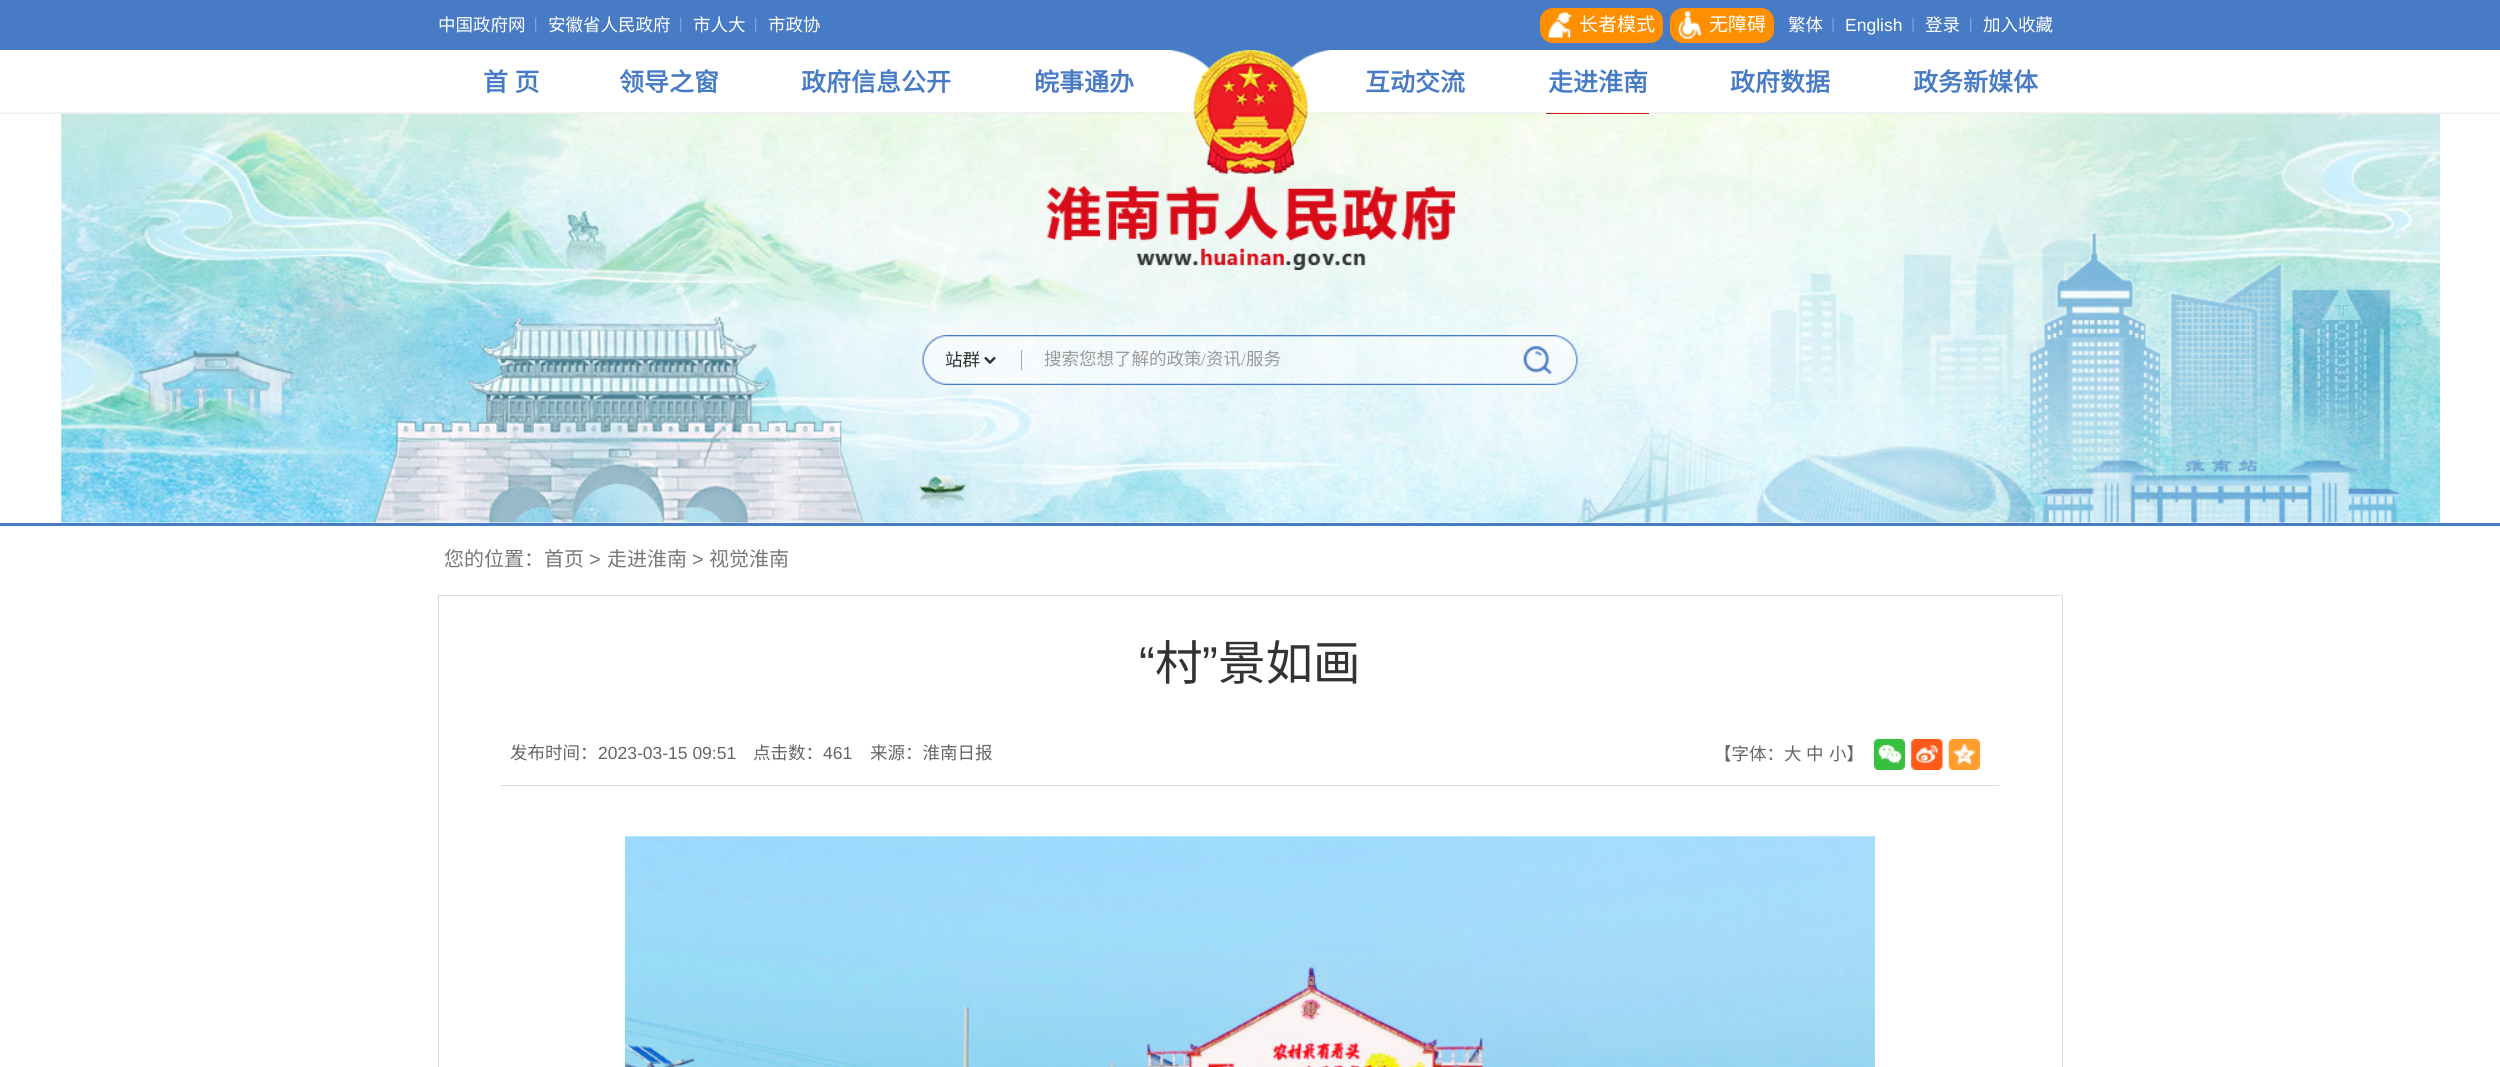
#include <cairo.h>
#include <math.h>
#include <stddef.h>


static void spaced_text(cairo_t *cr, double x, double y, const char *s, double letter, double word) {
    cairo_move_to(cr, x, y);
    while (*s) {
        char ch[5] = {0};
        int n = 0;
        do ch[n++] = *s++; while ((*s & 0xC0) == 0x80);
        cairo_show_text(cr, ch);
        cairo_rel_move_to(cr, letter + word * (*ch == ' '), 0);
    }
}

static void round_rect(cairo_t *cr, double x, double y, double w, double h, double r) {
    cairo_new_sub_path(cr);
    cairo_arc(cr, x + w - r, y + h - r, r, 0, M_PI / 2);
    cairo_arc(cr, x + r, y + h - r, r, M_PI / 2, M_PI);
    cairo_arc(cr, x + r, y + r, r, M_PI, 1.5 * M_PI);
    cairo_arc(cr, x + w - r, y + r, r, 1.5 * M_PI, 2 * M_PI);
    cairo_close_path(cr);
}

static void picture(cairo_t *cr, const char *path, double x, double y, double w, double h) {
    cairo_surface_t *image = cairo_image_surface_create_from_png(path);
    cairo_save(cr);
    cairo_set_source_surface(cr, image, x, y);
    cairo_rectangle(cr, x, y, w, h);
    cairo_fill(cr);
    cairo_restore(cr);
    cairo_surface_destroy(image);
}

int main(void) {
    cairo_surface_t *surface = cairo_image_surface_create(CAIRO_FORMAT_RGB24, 2500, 1067);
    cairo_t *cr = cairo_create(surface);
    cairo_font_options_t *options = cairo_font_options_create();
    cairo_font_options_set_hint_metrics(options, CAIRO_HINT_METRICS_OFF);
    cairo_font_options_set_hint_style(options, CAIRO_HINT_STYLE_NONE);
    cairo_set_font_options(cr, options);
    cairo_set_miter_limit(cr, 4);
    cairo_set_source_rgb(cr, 1, 1, 1);
    cairo_paint(cr);
    cairo_set_source_rgb(cr, 0.282, 0.482, 0.773);
    cairo_rectangle(cr, 0, 0, 2500, 50);
    cairo_fill(cr);
    cairo_select_font_face(cr, "Noto Sans CJK SC", CAIRO_FONT_SLANT_NORMAL, CAIRO_FONT_WEIGHT_NORMAL);
    cairo_set_font_size(cr, 17.5);
    cairo_set_source_rgb(cr, 1, 1, 1);
    cairo_move_to(cr, 438, 31);
    cairo_show_text(cr, "中国政府网");
    picture(cr, "img1.png", 535, 17, 2, 16);
    cairo_move_to(cr, 548, 31);
    cairo_show_text(cr, "安徽省人民政府");
    picture(cr, "img1.png", 680, 17, 2, 16);
    cairo_move_to(cr, 693, 31);
    cairo_show_text(cr, "市人大");
    picture(cr, "img1.png", 755, 17, 2, 16);
    cairo_move_to(cr, 768, 31);
    cairo_show_text(cr, "市政协");
    cairo_set_source_rgb(cr, 0.996, 0.561, 0);
    round_rect(cr, 1540, 8, 123, 35, 13);
    cairo_fill(cr);
    picture(cr, "img2.png", 1548, 12, 24, 26);
    cairo_set_font_size(cr, 19);
    cairo_set_source_rgb(cr, 1, 1, 1);
    cairo_move_to(cr, 1579, 31);
    cairo_show_text(cr, "长者模式");
    cairo_set_source_rgb(cr, 0.996, 0.561, 0);
    round_rect(cr, 1670, 8, 104, 35, 13);
    cairo_fill(cr);
    picture(cr, "img3.png", 1678, 11, 24, 28);
    cairo_set_source_rgb(cr, 1, 1, 1);
    cairo_move_to(cr, 1709, 31);
    cairo_show_text(cr, "无障碍");
    cairo_set_font_size(cr, 17.5);
    cairo_move_to(cr, 1788, 31);
    cairo_show_text(cr, "繁体");
    picture(cr, "img4.png", 1832, 17, 2, 16);
    cairo_select_font_face(cr, "Liberation Sans", CAIRO_FONT_SLANT_NORMAL, CAIRO_FONT_WEIGHT_NORMAL);
    cairo_move_to(cr, 1845, 31);
    cairo_show_text(cr, "English");
    picture(cr, "img4.png", 1912, 17, 2, 16);
    cairo_select_font_face(cr, "Noto Sans CJK SC", CAIRO_FONT_SLANT_NORMAL, CAIRO_FONT_WEIGHT_NORMAL);
    cairo_move_to(cr, 1925, 31);
    cairo_show_text(cr, "登录");
    picture(cr, "img1.png", 1970, 17, 2, 16);
    cairo_move_to(cr, 1983, 31);
    cairo_show_text(cr, "加入收藏");
    picture(cr, "img5.png", 0, 112, 2500, 2);
    picture(cr, "img6.png", 1170, 50, 161, 45);
    picture(cr, "img7.png", 1088, 112, 324, 2);
    cairo_select_font_face(cr, "Noto Sans CJK SC", CAIRO_FONT_SLANT_NORMAL, CAIRO_FONT_WEIGHT_BOLD);
    cairo_set_font_size(cr, 25);
    cairo_set_source_rgb(cr, 0.282, 0.482, 0.773);
    spaced_text(cr, 483, 91, "首 页", 0, 1);
    cairo_move_to(cr, 619, 91);
    cairo_show_text(cr, "领导之窗");
    cairo_move_to(cr, 801, 91);
    cairo_show_text(cr, "政府信息公开");
    cairo_move_to(cr, 1034, 91);
    cairo_show_text(cr, "皖事通办");
    picture(cr, "img9.png", 61, 114, 2379, 409);
    picture(cr, "img8.png", 1193, 50, 115, 124);
    cairo_move_to(cr, 1365, 91);
    cairo_show_text(cr, "互动交流");
    cairo_set_source_rgb(cr, 0.847, 0.106, 0.094);
    cairo_rectangle(cr, 1546, 113, 103, 1);
    cairo_fill(cr);
    cairo_set_source_rgb(cr, 0.282, 0.482, 0.773);
    cairo_move_to(cr, 1548, 91);
    cairo_show_text(cr, "走进淮南");
    cairo_move_to(cr, 1730, 91);
    cairo_show_text(cr, "政府数据");
    cairo_move_to(cr, 1913, 91);
    cairo_show_text(cr, "政务新媒体");
    cairo_rectangle(cr, 0, 523, 2500, 3);
    cairo_fill(cr);
    picture(cr, "img10.png", 1046, 186, 409, 84);
    picture(cr, "img11.png", 922, 335, 656, 50);
    cairo_set_source_rgb(cr, 0.667, 0.667, 0.667);
    cairo_rectangle(cr, 1021, 350, 1, 20);
    cairo_fill(cr);
    cairo_new_path(cr);
    cairo_move_to(cr, 985, 357.5);
    cairo_line_to(cr, 990, 362.5);
    cairo_line_to(cr, 995, 357.5);
    cairo_set_source_rgb(cr, 0.2, 0.2, 0.2);
    cairo_set_line_width(cr, 2.5);
    cairo_stroke(cr);
    cairo_select_font_face(cr, "Noto Sans CJK SC", CAIRO_FONT_SLANT_NORMAL, CAIRO_FONT_WEIGHT_NORMAL);
    cairo_set_font_size(cr, 17.5);
    cairo_move_to(cr, 945, 366);
    cairo_show_text(cr, "站群");
    cairo_set_source_rgb(cr, 0.6, 0.6, 0.6);
    cairo_move_to(cr, 1044, 365);
    cairo_show_text(cr, "搜索您想了解的政策");
    cairo_select_font_face(cr, "Liberation Serif", CAIRO_FONT_SLANT_NORMAL, CAIRO_FONT_WEIGHT_NORMAL);
    cairo_move_to(cr, 1201, 365);
    cairo_show_text(cr, "/");
    cairo_select_font_face(cr, "Noto Sans CJK SC", CAIRO_FONT_SLANT_NORMAL, CAIRO_FONT_WEIGHT_NORMAL);
    cairo_move_to(cr, 1206, 365);
    cairo_show_text(cr, "资讯");
    cairo_select_font_face(cr, "Liberation Serif", CAIRO_FONT_SLANT_NORMAL, CAIRO_FONT_WEIGHT_NORMAL);
    cairo_move_to(cr, 1241, 365);
    cairo_show_text(cr, "/");
    cairo_select_font_face(cr, "Noto Sans CJK SC", CAIRO_FONT_SLANT_NORMAL, CAIRO_FONT_WEIGHT_NORMAL);
    cairo_move_to(cr, 1246, 365);
    cairo_show_text(cr, "服务");
    picture(cr, "img12.png", 1523, 346, 29, 28);
    cairo_set_font_size(cr, 20);
    cairo_set_source_rgb(cr, 0.467, 0.467, 0.467);
    cairo_move_to(cr, 444, 566);
    cairo_show_text(cr, "您的位置：首页");
    cairo_select_font_face(cr, "Liberation Sans", CAIRO_FONT_SLANT_NORMAL, CAIRO_FONT_WEIGHT_NORMAL);
    cairo_move_to(cr, 589, 566);
    cairo_show_text(cr, ">");
    cairo_select_font_face(cr, "Noto Sans CJK SC", CAIRO_FONT_SLANT_NORMAL, CAIRO_FONT_WEIGHT_NORMAL);
    cairo_move_to(cr, 607, 566);
    cairo_show_text(cr, "走进淮南");
    cairo_select_font_face(cr, "Liberation Sans", CAIRO_FONT_SLANT_NORMAL, CAIRO_FONT_WEIGHT_NORMAL);
    cairo_move_to(cr, 692, 566);
    cairo_show_text(cr, ">");
    cairo_select_font_face(cr, "Noto Sans CJK SC", CAIRO_FONT_SLANT_NORMAL, CAIRO_FONT_WEIGHT_NORMAL);
    cairo_move_to(cr, 709, 566);
    cairo_show_text(cr, "视觉淮南");
    cairo_rectangle(cr, 438.5, 595.5, 1624, 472);
    cairo_set_source_rgb(cr, 0.859, 0.859, 0.859);
    cairo_set_line_width(cr, 1);
    cairo_stroke(cr);
    cairo_select_font_face(cr, "Liberation Sans", CAIRO_FONT_SLANT_NORMAL, CAIRO_FONT_WEIGHT_NORMAL);
    cairo_set_font_size(cr, 47.5);
    cairo_set_source_rgb(cr, 0.2, 0.2, 0.2);
    cairo_move_to(cr, 1139, 680);
    cairo_show_text(cr, "“");
    cairo_select_font_face(cr, "Noto Sans CJK SC", CAIRO_FONT_SLANT_NORMAL, CAIRO_FONT_WEIGHT_NORMAL);
    cairo_move_to(cr, 1155, 680);
    cairo_show_text(cr, "村");
    cairo_select_font_face(cr, "Liberation Sans", CAIRO_FONT_SLANT_NORMAL, CAIRO_FONT_WEIGHT_NORMAL);
    cairo_move_to(cr, 1202, 680);
    cairo_show_text(cr, "”");
    cairo_select_font_face(cr, "Noto Sans CJK SC", CAIRO_FONT_SLANT_NORMAL, CAIRO_FONT_WEIGHT_NORMAL);
    cairo_move_to(cr, 1218, 680);
    cairo_show_text(cr, "景如画");
    cairo_set_source_rgb(cr, 0.859, 0.859, 0.859);
    cairo_rectangle(cr, 501, 785, 1498, 1);
    cairo_fill(cr);
    cairo_set_font_size(cr, 17.5);
    cairo_set_source_rgb(cr, 0.4, 0.4, 0.4);
    cairo_move_to(cr, 510, 759);
    cairo_show_text(cr, "发布时间：");
    cairo_select_font_face(cr, "Liberation Sans", CAIRO_FONT_SLANT_NORMAL, CAIRO_FONT_WEIGHT_NORMAL);
    cairo_move_to(cr, 598, 759);
    cairo_show_text(cr, "2023-03-15 09:51");
    cairo_select_font_face(cr, "Noto Sans CJK SC", CAIRO_FONT_SLANT_NORMAL, CAIRO_FONT_WEIGHT_NORMAL);
    cairo_move_to(cr, 753, 759);
    cairo_show_text(cr, "点击数：");
    cairo_select_font_face(cr, "Liberation Sans", CAIRO_FONT_SLANT_NORMAL, CAIRO_FONT_WEIGHT_NORMAL);
    cairo_move_to(cr, 823, 759);
    cairo_show_text(cr, "461");
    cairo_select_font_face(cr, "Noto Sans CJK SC", CAIRO_FONT_SLANT_NORMAL, CAIRO_FONT_WEIGHT_NORMAL);
    cairo_move_to(cr, 870, 759);
    cairo_show_text(cr, "来源：淮南日报");
    cairo_move_to(cr, 1714, 760);
    cairo_show_text(cr, "【字体：大");
    cairo_move_to(cr, 1806, 760);
    cairo_show_text(cr, "中");
    cairo_move_to(cr, 1829, 760);
    cairo_show_text(cr, "小】");
    picture(cr, "img13.png", 1873, 738, 32, 32);
    picture(cr, "img14.png", 1911, 738, 32, 32);
    picture(cr, "img15.png", 1948, 738, 32, 32);
    picture(cr, "img16.png", 625, 836, 1250, 231);
    cairo_surface_write_to_png(surface, "page.png");
    cairo_font_options_destroy(options);
    cairo_destroy(cr);
    cairo_surface_destroy(surface);
    return 0;
}
